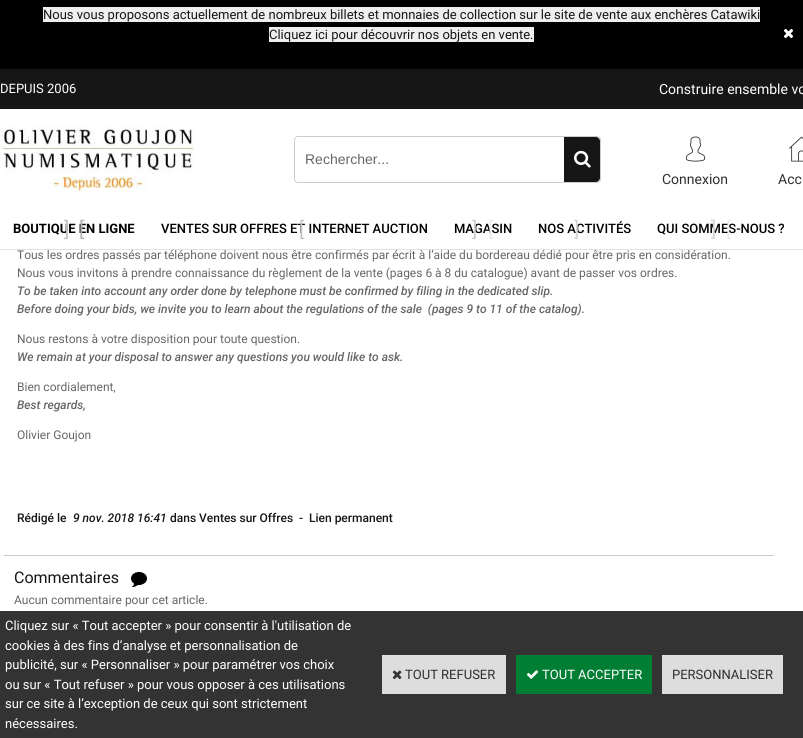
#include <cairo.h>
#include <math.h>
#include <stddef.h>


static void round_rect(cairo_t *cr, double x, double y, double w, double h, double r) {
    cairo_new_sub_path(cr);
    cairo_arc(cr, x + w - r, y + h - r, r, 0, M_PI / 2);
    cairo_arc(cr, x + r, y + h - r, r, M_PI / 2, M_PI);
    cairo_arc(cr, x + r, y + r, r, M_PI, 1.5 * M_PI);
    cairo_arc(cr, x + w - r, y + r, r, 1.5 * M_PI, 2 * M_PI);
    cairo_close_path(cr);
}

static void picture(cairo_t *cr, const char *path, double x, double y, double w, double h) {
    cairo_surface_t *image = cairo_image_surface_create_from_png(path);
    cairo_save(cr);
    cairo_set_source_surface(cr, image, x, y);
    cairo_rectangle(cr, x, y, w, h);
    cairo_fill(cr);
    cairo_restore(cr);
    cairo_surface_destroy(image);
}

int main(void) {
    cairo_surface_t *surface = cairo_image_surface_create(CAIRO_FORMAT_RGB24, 803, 738);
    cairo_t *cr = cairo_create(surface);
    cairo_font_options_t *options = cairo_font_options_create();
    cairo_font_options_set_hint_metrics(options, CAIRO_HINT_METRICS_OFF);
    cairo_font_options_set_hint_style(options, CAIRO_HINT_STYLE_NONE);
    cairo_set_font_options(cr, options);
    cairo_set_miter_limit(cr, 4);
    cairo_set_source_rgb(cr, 1, 1, 1);
    cairo_paint(cr);
    cairo_set_source_rgb(cr, 0, 0, 0);
    cairo_rectangle(cr, 0, 0, 803, 69);
    cairo_fill(cr);
    cairo_set_source_rgb(cr, 0.937, 0.937, 0.937);
    cairo_rectangle(cr, 43, 7, 717, 15);
    cairo_fill(cr);
    cairo_select_font_face(cr, "Roboto", CAIRO_FONT_SLANT_NORMAL, CAIRO_FONT_WEIGHT_NORMAL);
    cairo_set_font_size(cr, 13);
    cairo_set_source_rgb(cr, 0.086, 0.086, 0.086);
    cairo_move_to(cr, 43, 19);
    cairo_show_text(cr, "Nous vous proposons actuellement de nombreux billets et monnaies de collection sur le site de vente aux enchères Catawiki");
    cairo_set_source_rgb(cr, 0.937, 0.937, 0.937);
    cairo_rectangle(cr, 269, 27, 265, 15);
    cairo_fill(cr);
    cairo_set_source_rgb(cr, 0.086, 0.086, 0.086);
    cairo_move_to(cr, 269, 39);
    cairo_show_text(cr, "Cliquez ici pour découvrir nos objets en vente.");
    picture(cr, "img1.png", 783, 28, 11, 11);
    cairo_rectangle(cr, 0, 69, 803, 40);
    cairo_fill(cr);
    cairo_set_font_size(cr, 12);
    cairo_set_source_rgb(cr, 0.4, 0.4, 0.4);
    cairo_move_to(cr, 17, 259);
    cairo_show_text(cr, "Tous les ordres passés par téléphone doivent nous être confirmés par écrit à l’aide du bordereau dédié pour être pris en considération.");
    cairo_set_source_rgb(cr, 0.886, 0.886, 0.886);
    cairo_rectangle(cr, 0, 249, 803, 1);
    cairo_fill(cr);
    cairo_set_font_size(cr, 13);
    cairo_set_source_rgb(cr, 1, 1, 1);
    cairo_move_to(cr, 0, 93);
    cairo_show_text(cr, "DEPUIS 2006");
    cairo_set_font_size(cr, 14);
    cairo_move_to(cr, 659, 94);
    cairo_show_text(cr, "Construire ensemble vo");
    picture(cr, "img2.png", 0, 125, 195, 69);
    round_rect(cr, 294.5, 136.5, 306, 46, 3.5);
    cairo_set_source_rgb(cr, 0.8, 0.8, 0.8);
    cairo_set_line_width(cr, 1);
    cairo_stroke(cr);
    cairo_select_font_face(cr, "Liberation Sans", CAIRO_FONT_SLANT_NORMAL, CAIRO_FONT_WEIGHT_NORMAL);
    cairo_set_source_rgb(cr, 0.4, 0.4, 0.4);
    cairo_move_to(cr, 305, 164);
    cairo_show_text(cr, "Rechercher...");
    cairo_set_source_rgb(cr, 0.086, 0.086, 0.086);
    cairo_new_path(cr);
    cairo_move_to(cr, 564, 137);
    cairo_line_to(cr, 596, 137);
    cairo_curve_to(cr, 598, 137, 600, 139, 600, 141);
    cairo_line_to(cr, 600, 178);
    cairo_curve_to(cr, 600, 180, 598, 182, 596, 182);
    cairo_line_to(cr, 564, 182);
    cairo_close_path(cr);
    cairo_fill(cr);
    picture(cr, "img3.png", 574, 150, 17, 18);
    picture(cr, "img4.png", 685, 136, 21, 26);
    cairo_select_font_face(cr, "Roboto", CAIRO_FONT_SLANT_NORMAL, CAIRO_FONT_WEIGHT_NORMAL);
    cairo_set_source_rgb(cr, 0.18, 0.18, 0.18);
    cairo_move_to(cr, 662, 184);
    cairo_show_text(cr, "Connexion");
    picture(cr, "img5.png", 789, 136, 14, 26);
    cairo_move_to(cr, 778, 184);
    cairo_show_text(cr, "Acc");
    cairo_select_font_face(cr, "Roboto", CAIRO_FONT_SLANT_NORMAL, CAIRO_FONT_WEIGHT_BOLD);
    cairo_set_font_size(cr, 13);
    cairo_set_source_rgb(cr, 0, 0, 0);
    cairo_move_to(cr, 13, 233);
    cairo_show_text(cr, "BOUTIQUE EN LIGNE");
    cairo_select_font_face(cr, "Roboto", CAIRO_FONT_SLANT_NORMAL, CAIRO_FONT_WEIGHT_NORMAL);
    cairo_set_font_size(cr, 20);
    cairo_set_source_rgb(cr, 0.769, 0.769, 0.769);
    cairo_move_to(cr, 64, 236);
    cairo_show_text(cr, "]");
    cairo_set_source_rgb(cr, 0.702, 0.702, 0.702);
    cairo_move_to(cr, 79, 236);
    cairo_show_text(cr, "[");
    cairo_select_font_face(cr, "Roboto Medium", CAIRO_FONT_SLANT_NORMAL, CAIRO_FONT_WEIGHT_NORMAL);
    cairo_set_font_size(cr, 13);
    cairo_set_source_rgb(cr, 0, 0, 0);
    cairo_move_to(cr, 161, 233);
    cairo_show_text(cr, "VENTES SUR OFFRES ET INTERNET AUCTION");
    cairo_select_font_face(cr, "Roboto", CAIRO_FONT_SLANT_NORMAL, CAIRO_FONT_WEIGHT_NORMAL);
    cairo_set_font_size(cr, 20);
    cairo_set_source_rgb(cr, 0.769, 0.769, 0.769);
    cairo_move_to(cr, 299, 236);
    cairo_show_text(cr, "[");
    cairo_select_font_face(cr, "Roboto Medium", CAIRO_FONT_SLANT_NORMAL, CAIRO_FONT_WEIGHT_NORMAL);
    cairo_set_font_size(cr, 13);
    cairo_set_source_rgb(cr, 0, 0, 0);
    cairo_move_to(cr, 454, 233);
    cairo_show_text(cr, "MAGASIN");
    cairo_select_font_face(cr, "Roboto", CAIRO_FONT_SLANT_NORMAL, CAIRO_FONT_WEIGHT_NORMAL);
    cairo_set_font_size(cr, 20);
    cairo_set_source_rgb(cr, 0.808, 0.808, 0.808);
    cairo_move_to(cr, 472, 236);
    cairo_show_text(cr, "]");
    cairo_set_source_rgb(cr, 0.918, 0.918, 0.918);
    cairo_move_to(cr, 488, 236);
    cairo_show_text(cr, "[");
    cairo_select_font_face(cr, "Roboto Medium", CAIRO_FONT_SLANT_NORMAL, CAIRO_FONT_WEIGHT_NORMAL);
    cairo_set_font_size(cr, 13);
    cairo_set_source_rgb(cr, 0, 0, 0);
    cairo_move_to(cr, 538, 233);
    cairo_show_text(cr, "NOS ACTIVITÉS");
    cairo_select_font_face(cr, "Roboto", CAIRO_FONT_SLANT_NORMAL, CAIRO_FONT_WEIGHT_NORMAL);
    cairo_set_font_size(cr, 20);
    cairo_set_source_rgb(cr, 0.831, 0.831, 0.831);
    cairo_move_to(cr, 574, 236);
    cairo_show_text(cr, "]");
    cairo_select_font_face(cr, "Roboto Medium", CAIRO_FONT_SLANT_NORMAL, CAIRO_FONT_WEIGHT_NORMAL);
    cairo_set_font_size(cr, 13);
    cairo_set_source_rgb(cr, 0, 0, 0);
    cairo_move_to(cr, 657, 233);
    cairo_show_text(cr, "QUI SOMMES-NOUS ?");
    cairo_select_font_face(cr, "Roboto", CAIRO_FONT_SLANT_NORMAL, CAIRO_FONT_WEIGHT_NORMAL);
    cairo_set_font_size(cr, 20);
    cairo_set_source_rgb(cr, 0.831, 0.831, 0.831);
    cairo_move_to(cr, 711, 236);
    cairo_show_text(cr, "]");
    cairo_set_source_rgb(cr, 0.918, 0.918, 0.918);
    cairo_move_to(cr, 726, 236);
    cairo_show_text(cr, "[");
    cairo_set_font_size(cr, 12);
    cairo_set_source_rgb(cr, 0.4, 0.4, 0.4);
    cairo_move_to(cr, 17, 277);
    cairo_show_text(cr, "Nous vous invitons à prendre connaissance du règlement de la vente (pages 6 à 8 du catalogue) avant de passer vos ordres.");
    cairo_select_font_face(cr, "Roboto Medium", CAIRO_FONT_SLANT_ITALIC, CAIRO_FONT_WEIGHT_NORMAL);
    cairo_move_to(cr, 17, 295);
    cairo_show_text(cr, "To be taken into account any order done by telephone must be confirmed by filing in the dedicated slip.");
    cairo_move_to(cr, 17, 313);
    cairo_show_text(cr, "Before doing your bids, we invite you to learn about the regulations of the sale  (pages 9 to 11 of the catalog).");
    cairo_select_font_face(cr, "Roboto", CAIRO_FONT_SLANT_NORMAL, CAIRO_FONT_WEIGHT_NORMAL);
    cairo_move_to(cr, 17, 343);
    cairo_show_text(cr, "Nous restons à votre disposition pour toute question.");
    cairo_select_font_face(cr, "Roboto Medium", CAIRO_FONT_SLANT_ITALIC, CAIRO_FONT_WEIGHT_NORMAL);
    cairo_move_to(cr, 17, 361);
    cairo_show_text(cr, "We remain at your disposal to answer any questions you would like to ask.");
    cairo_select_font_face(cr, "Roboto", CAIRO_FONT_SLANT_NORMAL, CAIRO_FONT_WEIGHT_NORMAL);
    cairo_move_to(cr, 17, 391);
    cairo_show_text(cr, "Bien cordialement,");
    cairo_select_font_face(cr, "Roboto Medium", CAIRO_FONT_SLANT_ITALIC, CAIRO_FONT_WEIGHT_NORMAL);
    cairo_move_to(cr, 17, 409);
    cairo_show_text(cr, "Best regards,");
    cairo_select_font_face(cr, "Roboto", CAIRO_FONT_SLANT_NORMAL, CAIRO_FONT_WEIGHT_NORMAL);
    cairo_move_to(cr, 17, 439);
    cairo_show_text(cr, "Olivier Goujon");
    cairo_select_font_face(cr, "Roboto Medium", CAIRO_FONT_SLANT_NORMAL, CAIRO_FONT_WEIGHT_NORMAL);
    cairo_set_source_rgb(cr, 0.086, 0.086, 0.086);
    cairo_move_to(cr, 17, 522);
    cairo_show_text(cr, "Rédigé le");
    cairo_select_font_face(cr, "Roboto Medium", CAIRO_FONT_SLANT_ITALIC, CAIRO_FONT_WEIGHT_NORMAL);
    cairo_move_to(cr, 73, 522);
    cairo_show_text(cr, "9 nov. 2018 16:41");
    cairo_select_font_face(cr, "Roboto Medium", CAIRO_FONT_SLANT_NORMAL, CAIRO_FONT_WEIGHT_NORMAL);
    cairo_move_to(cr, 170, 522);
    cairo_show_text(cr, "dans Ventes sur Offres");
    cairo_move_to(cr, 299, 522);
    cairo_show_text(cr, "-");
    cairo_move_to(cr, 309, 522);
    cairo_show_text(cr, "Lien permanent");
    cairo_set_source_rgb(cr, 0.8, 0.8, 0.8);
    cairo_rectangle(cr, 4, 555, 770, 1);
    cairo_fill(cr);
    cairo_select_font_face(cr, "Roboto", CAIRO_FONT_SLANT_NORMAL, CAIRO_FONT_WEIGHT_NORMAL);
    cairo_set_font_size(cr, 16);
    cairo_set_source_rgb(cr, 0.086, 0.086, 0.086);
    cairo_move_to(cr, 14, 583);
    cairo_show_text(cr, "Commentaires");
    picture(cr, "img6.png", 131, 572, 16, 15);
    cairo_set_font_size(cr, 12);
    cairo_set_source_rgb(cr, 0.4, 0.4, 0.4);
    cairo_move_to(cr, 14, 604);
    cairo_show_text(cr, "Aucun commentaire pour cet article.");
    cairo_set_source_rgb(cr, 0.2, 0.2, 0.2);
    cairo_rectangle(cr, 0, 611, 803, 127);
    cairo_fill(cr);
    cairo_set_font_size(cr, 13);
    cairo_set_source_rgb(cr, 1, 1, 1);
    cairo_move_to(cr, 5, 630);
    cairo_show_text(cr, "Cliquez sur « Tout accepter » pour consentir à l'utilisation de");
    cairo_move_to(cr, 5, 650);
    cairo_show_text(cr, "cookies à des fins d’analyse et personnalisation de");
    cairo_move_to(cr, 5, 669);
    cairo_show_text(cr, "publicité, sur « Personnaliser » pour paramétrer vos choix");
    cairo_move_to(cr, 5, 689);
    cairo_show_text(cr, "ou sur « Tout refuser » pour vous opposer à ces utilisations");
    cairo_move_to(cr, 5, 708);
    cairo_show_text(cr, "sur ce site à l’exception de ceux qui sont strictement");
    cairo_move_to(cr, 5, 728);
    cairo_show_text(cr, "nécessaires.");
    cairo_set_source_rgb(cr, 0.867, 0.867, 0.867);
    cairo_rectangle(cr, 382, 655, 124, 39);
    cairo_fill(cr);
    picture(cr, "img7.png", 392, 670, 10, 10);
    cairo_set_source_rgb(cr, 0.18, 0.18, 0.18);
    cairo_move_to(cr, 405, 679);
    cairo_show_text(cr, "TOUT REFUSER");
    cairo_set_source_rgb(cr, 0, 0.494, 0.2);
    cairo_rectangle(cr, 516, 655, 136, 39);
    cairo_fill(cr);
    picture(cr, "img8.png", 526, 670, 13, 9);
    cairo_set_source_rgb(cr, 1, 1, 1);
    cairo_move_to(cr, 542, 679);
    cairo_show_text(cr, "TOUT ACCEPTER");
    cairo_set_source_rgb(cr, 0.867, 0.867, 0.867);
    cairo_rectangle(cr, 662, 655, 121, 39);
    cairo_fill(cr);
    cairo_set_source_rgb(cr, 0.18, 0.18, 0.18);
    cairo_move_to(cr, 672, 679);
    cairo_show_text(cr, "PERSONNALISER");
    cairo_surface_write_to_png(surface, "page.png");
    cairo_font_options_destroy(options);
    cairo_destroy(cr);
    cairo_surface_destroy(surface);
    return 0;
}
